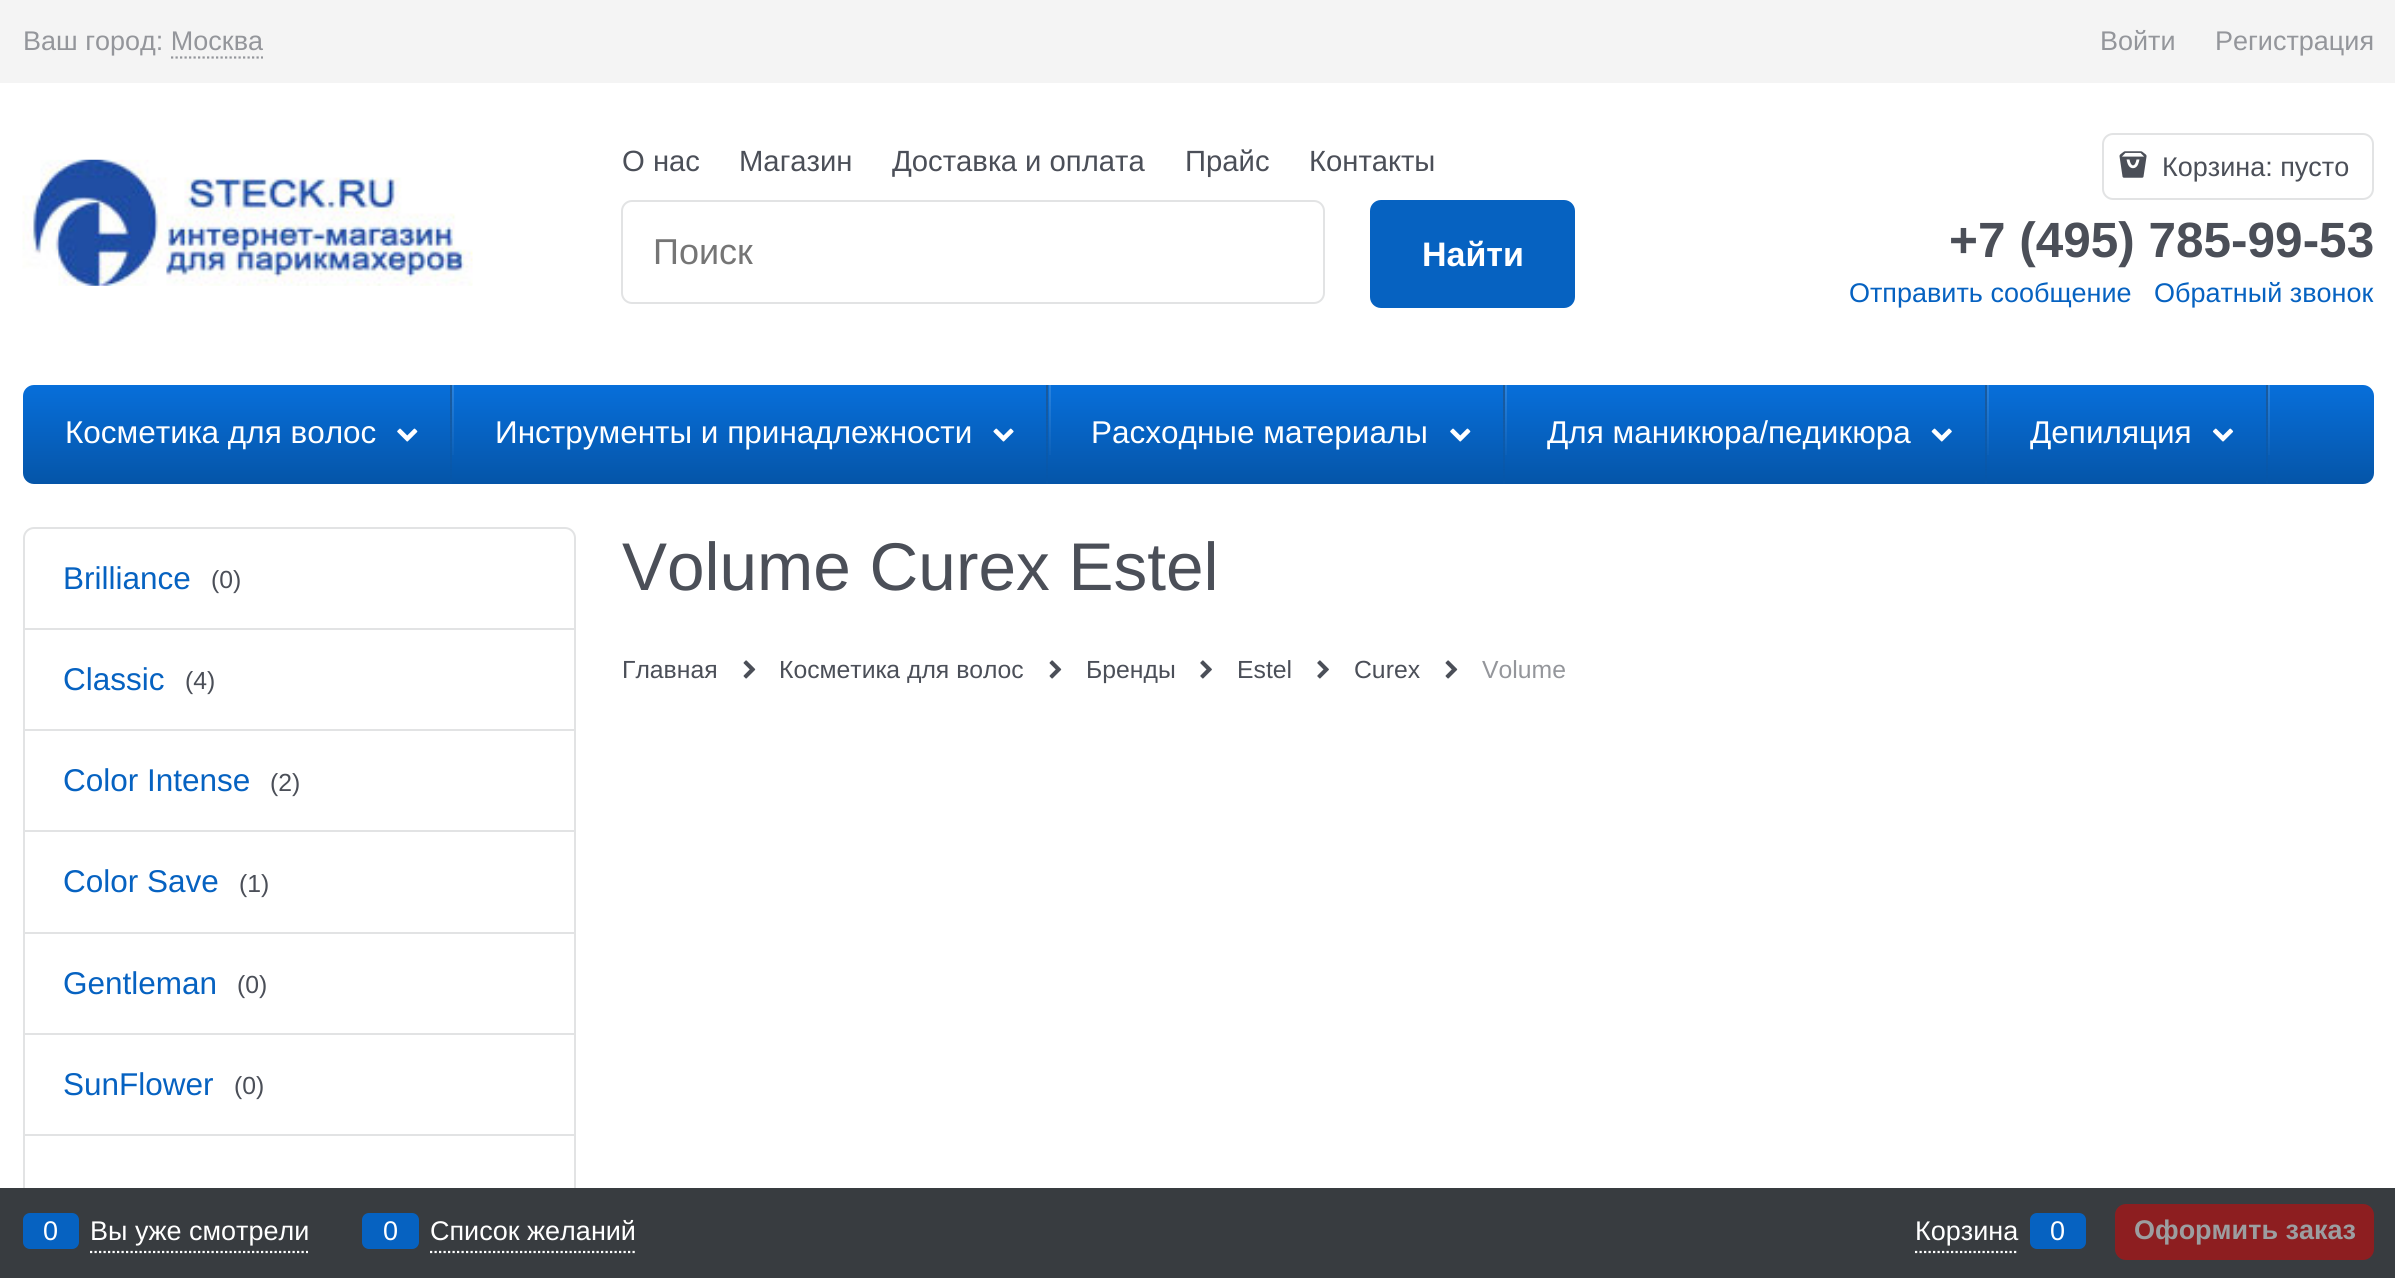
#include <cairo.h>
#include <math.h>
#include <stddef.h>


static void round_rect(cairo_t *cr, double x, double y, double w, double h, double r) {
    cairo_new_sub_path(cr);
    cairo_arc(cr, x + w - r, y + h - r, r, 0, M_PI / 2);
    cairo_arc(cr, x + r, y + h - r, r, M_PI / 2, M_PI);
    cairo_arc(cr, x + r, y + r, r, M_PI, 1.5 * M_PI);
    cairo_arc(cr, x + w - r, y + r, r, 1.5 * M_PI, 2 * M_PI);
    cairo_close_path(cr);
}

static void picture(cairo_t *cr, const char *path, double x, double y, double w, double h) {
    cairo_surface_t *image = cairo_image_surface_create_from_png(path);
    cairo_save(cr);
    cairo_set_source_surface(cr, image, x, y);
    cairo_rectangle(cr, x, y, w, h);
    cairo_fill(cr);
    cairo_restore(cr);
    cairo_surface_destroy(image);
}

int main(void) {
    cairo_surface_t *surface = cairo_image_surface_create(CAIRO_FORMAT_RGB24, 2395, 1278);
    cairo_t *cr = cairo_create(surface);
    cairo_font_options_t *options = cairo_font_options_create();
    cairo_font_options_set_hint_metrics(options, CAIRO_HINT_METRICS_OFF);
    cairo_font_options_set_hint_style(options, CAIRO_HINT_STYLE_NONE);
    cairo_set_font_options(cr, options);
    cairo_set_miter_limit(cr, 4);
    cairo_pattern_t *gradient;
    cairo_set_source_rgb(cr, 1, 1, 1);
    cairo_paint(cr);
    cairo_set_source_rgb(cr, 0.957, 0.957, 0.957);
    cairo_rectangle(cr, 0, 0, 2395, 83);
    cairo_fill(cr);
    cairo_select_font_face(cr, "Liberation Sans", CAIRO_FONT_SLANT_NORMAL, CAIRO_FONT_WEIGHT_NORMAL);
    cairo_set_font_size(cr, 27);
    cairo_set_source_rgb(cr, 0.58, 0.588, 0.608);
    cairo_move_to(cr, 23, 50);
    cairo_show_text(cr, "Ваш город: Москва");
    cairo_new_path(cr);
    cairo_move_to(cr, 171, 57.5);
    cairo_line_to(cr, 263, 57.5);
    cairo_set_line_width(cr, 2.2);
    cairo_set_dash(cr, (double[]){2.25, 2.25}, 2, 0);
    cairo_stroke(cr);
    cairo_move_to(cr, 2100, 50);
    cairo_show_text(cr, "Войти");
    cairo_move_to(cr, 2215, 50);
    cairo_show_text(cr, "Регистрация");
    picture(cr, "img1.png", 22, 159, 451, 127);
    cairo_set_font_size(cr, 29.25);
    cairo_set_source_rgb(cr, 0.294, 0.31, 0.345);
    cairo_move_to(cr, 622, 171);
    cairo_show_text(cr, "О нас");
    cairo_move_to(cr, 739, 171);
    cairo_show_text(cr, "Магазин");
    cairo_move_to(cr, 892, 171);
    cairo_show_text(cr, "Доставка и оплата");
    cairo_move_to(cr, 1185, 171);
    cairo_show_text(cr, "Прайс");
    cairo_move_to(cr, 1309, 171);
    cairo_show_text(cr, "Контакты");
    round_rect(cr, 622, 201, 702, 102, 10);
    cairo_set_source_rgb(cr, 0.886, 0.89, 0.894);
    cairo_set_line_width(cr, 2);
    cairo_set_dash(cr, NULL, 0, 0);
    cairo_stroke(cr);
    cairo_set_font_size(cr, 36);
    cairo_set_source_rgb(cr, 0.459, 0.459, 0.459);
    cairo_move_to(cr, 653, 264);
    cairo_show_text(cr, "Поиск");
    cairo_set_source_rgb(cr, 0.024, 0.384, 0.757);
    round_rect(cr, 1370, 200, 205, 108, 11);
    cairo_fill(cr);
    cairo_select_font_face(cr, "Liberation Sans", CAIRO_FONT_SLANT_NORMAL, CAIRO_FONT_WEIGHT_BOLD);
    cairo_set_font_size(cr, 34);
    cairo_set_source_rgb(cr, 1, 1, 1);
    cairo_move_to(cr, 1422, 266);
    cairo_show_text(cr, "Найти");
    round_rect(cr, 2103, 134, 270, 65, 10);
    cairo_set_source_rgb(cr, 0.886, 0.89, 0.894);
    cairo_stroke(cr);
    picture(cr, "img2.png", 2119, 151, 28, 27);
    cairo_select_font_face(cr, "Liberation Sans", CAIRO_FONT_SLANT_NORMAL, CAIRO_FONT_WEIGHT_NORMAL);
    cairo_set_font_size(cr, 27);
    cairo_set_source_rgb(cr, 0.294, 0.31, 0.345);
    cairo_move_to(cr, 2162, 176);
    cairo_show_text(cr, "Корзина: пусто");
    cairo_select_font_face(cr, "Liberation Sans", CAIRO_FONT_SLANT_NORMAL, CAIRO_FONT_WEIGHT_BOLD);
    cairo_set_font_size(cr, 49.5);
    cairo_move_to(cr, 1949, 257);
    cairo_show_text(cr, "+7 (495) 785-99-53");
    cairo_select_font_face(cr, "Liberation Sans", CAIRO_FONT_SLANT_NORMAL, CAIRO_FONT_WEIGHT_NORMAL);
    cairo_set_font_size(cr, 27);
    cairo_set_source_rgb(cr, 0.024, 0.384, 0.757);
    cairo_move_to(cr, 1849, 302);
    cairo_show_text(cr, "Отправить сообщение");
    cairo_move_to(cr, 2154, 302);
    cairo_show_text(cr, "Обратный звонок");
    gradient = cairo_pattern_create_linear(1198, 385, 1198, 484);
    cairo_pattern_add_color_stop_rgba(gradient, 0, 0.027, 0.435, 0.855, 1);
    cairo_pattern_add_color_stop_rgba(gradient, 0.5, 0.024, 0.384, 0.757, 1);
    cairo_pattern_add_color_stop_rgba(gradient, 1, 0.02, 0.333, 0.659, 1);
    cairo_set_source(cr, gradient);
    cairo_pattern_destroy(gradient);
    round_rect(cr, 23, 385, 2351, 99, 11);
    cairo_fill(cr);
    cairo_set_font_size(cr, 31.5);
    cairo_set_source_rgb(cr, 1, 1, 1);
    cairo_move_to(cr, 65, 443);
    cairo_show_text(cr, "Косметика для волос");
    picture(cr, "img3.png", 397, 428, 21, 14);
    gradient = cairo_pattern_create_linear(453, 385, 453, 484);
    cairo_pattern_add_color_stop_rgba(gradient, 0, 1, 1, 1, 0.14);
    cairo_pattern_add_color_stop_rgba(gradient, 0.72, 1, 1, 1, 0.02);
    cairo_pattern_add_color_stop_rgba(gradient, 1, 1, 1, 1, 0);
    cairo_set_source(cr, gradient);
    cairo_pattern_destroy(gradient);
    cairo_rectangle(cr, 452, 385, 2, 70);
    cairo_fill(cr);
    gradient = cairo_pattern_create_linear(451, 385, 451, 484);
    cairo_pattern_add_color_stop_rgba(gradient, 0, 0.224, 0.224, 0.224, 0.39);
    cairo_pattern_add_color_stop_rgba(gradient, 0.17, 0.224, 0.224, 0.224, 0.33);
    cairo_pattern_add_color_stop_rgba(gradient, 0.61, 0.224, 0.224, 0.224, 0.12);
    cairo_pattern_add_color_stop_rgba(gradient, 0.96, 0.224, 0.224, 0.224, 0.01);
    cairo_pattern_add_color_stop_rgba(gradient, 0.98, 1, 1, 1, 0.01);
    cairo_pattern_add_color_stop_rgba(gradient, 1, 1, 1, 1, 0);
    cairo_set_source(cr, gradient);
    cairo_pattern_destroy(gradient);
    cairo_rectangle(cr, 450, 385, 2, 99);
    cairo_fill(cr);
    cairo_set_source_rgb(cr, 1, 1, 1);
    cairo_move_to(cr, 495, 443);
    cairo_show_text(cr, "Инструменты и принадлежности");
    picture(cr, "img4.png", 993, 428, 21, 14);
    gradient = cairo_pattern_create_linear(1050, 385, 1050, 484);
    cairo_pattern_add_color_stop_rgba(gradient, 0, 1, 1, 1, 0.14);
    cairo_pattern_add_color_stop_rgba(gradient, 0.72, 1, 1, 1, 0.02);
    cairo_pattern_add_color_stop_rgba(gradient, 1, 1, 1, 1, 0);
    cairo_set_source(cr, gradient);
    cairo_pattern_destroy(gradient);
    cairo_rectangle(cr, 1049, 385, 2, 70);
    cairo_fill(cr);
    gradient = cairo_pattern_create_linear(1047, 385, 1047, 484);
    cairo_pattern_add_color_stop_rgba(gradient, 0, 0.224, 0.224, 0.224, 0.39);
    cairo_pattern_add_color_stop_rgba(gradient, 0.17, 0.224, 0.224, 0.224, 0.33);
    cairo_pattern_add_color_stop_rgba(gradient, 0.61, 0.224, 0.224, 0.224, 0.12);
    cairo_pattern_add_color_stop_rgba(gradient, 0.96, 0.224, 0.224, 0.224, 0.01);
    cairo_pattern_add_color_stop_rgba(gradient, 0.98, 1, 1, 1, 0.01);
    cairo_pattern_add_color_stop_rgba(gradient, 1, 1, 1, 1, 0);
    cairo_set_source(cr, gradient);
    cairo_pattern_destroy(gradient);
    cairo_rectangle(cr, 1046, 385, 2, 99);
    cairo_fill(cr);
    cairo_set_source_rgb(cr, 1, 1, 1);
    cairo_move_to(cr, 1091, 443);
    cairo_show_text(cr, "Расходные материалы");
    picture(cr, "img3.png", 1450, 428, 21, 14);
    gradient = cairo_pattern_create_linear(1506, 385, 1506, 484);
    cairo_pattern_add_color_stop_rgba(gradient, 0, 1, 1, 1, 0.14);
    cairo_pattern_add_color_stop_rgba(gradient, 0.72, 1, 1, 1, 0.02);
    cairo_pattern_add_color_stop_rgba(gradient, 1, 1, 1, 1, 0);
    cairo_set_source(cr, gradient);
    cairo_pattern_destroy(gradient);
    cairo_rectangle(cr, 1505, 385, 2, 70);
    cairo_fill(cr);
    gradient = cairo_pattern_create_linear(1504, 385, 1504, 484);
    cairo_pattern_add_color_stop_rgba(gradient, 0, 0.224, 0.224, 0.224, 0.39);
    cairo_pattern_add_color_stop_rgba(gradient, 0.17, 0.224, 0.224, 0.224, 0.33);
    cairo_pattern_add_color_stop_rgba(gradient, 0.61, 0.224, 0.224, 0.224, 0.12);
    cairo_pattern_add_color_stop_rgba(gradient, 0.96, 0.224, 0.224, 0.224, 0.01);
    cairo_pattern_add_color_stop_rgba(gradient, 0.98, 1, 1, 1, 0.01);
    cairo_pattern_add_color_stop_rgba(gradient, 1, 1, 1, 1, 0);
    cairo_set_source(cr, gradient);
    cairo_pattern_destroy(gradient);
    cairo_rectangle(cr, 1503, 385, 2, 99);
    cairo_fill(cr);
    cairo_set_source_rgb(cr, 1, 1, 1);
    cairo_move_to(cr, 1547, 443);
    cairo_show_text(cr, "Для маникюра/педикюра");
    picture(cr, "img5.png", 1931, 428, 21, 14);
    gradient = cairo_pattern_create_linear(1988, 385, 1988, 484);
    cairo_pattern_add_color_stop_rgba(gradient, 0, 1, 1, 1, 0.14);
    cairo_pattern_add_color_stop_rgba(gradient, 0.72, 1, 1, 1, 0.02);
    cairo_pattern_add_color_stop_rgba(gradient, 1, 1, 1, 1, 0);
    cairo_set_source(cr, gradient);
    cairo_pattern_destroy(gradient);
    cairo_rectangle(cr, 1987, 385, 2, 70);
    cairo_fill(cr);
    gradient = cairo_pattern_create_linear(1986, 385, 1986, 484);
    cairo_pattern_add_color_stop_rgba(gradient, 0, 0.224, 0.224, 0.224, 0.39);
    cairo_pattern_add_color_stop_rgba(gradient, 0.17, 0.224, 0.224, 0.224, 0.33);
    cairo_pattern_add_color_stop_rgba(gradient, 0.61, 0.224, 0.224, 0.224, 0.12);
    cairo_pattern_add_color_stop_rgba(gradient, 0.96, 0.224, 0.224, 0.224, 0.01);
    cairo_pattern_add_color_stop_rgba(gradient, 0.98, 1, 1, 1, 0.01);
    cairo_pattern_add_color_stop_rgba(gradient, 1, 1, 1, 1, 0);
    cairo_set_source(cr, gradient);
    cairo_pattern_destroy(gradient);
    cairo_rectangle(cr, 1985, 385, 2, 99);
    cairo_fill(cr);
    cairo_set_source_rgb(cr, 1, 1, 1);
    cairo_move_to(cr, 2030, 443);
    cairo_show_text(cr, "Депиляция");
    picture(cr, "img6.png", 2212, 428, 22, 14);
    gradient = cairo_pattern_create_linear(2269, 385, 2269, 484);
    cairo_pattern_add_color_stop_rgba(gradient, 0, 1, 1, 1, 0.14);
    cairo_pattern_add_color_stop_rgba(gradient, 0.72, 1, 1, 1, 0.02);
    cairo_pattern_add_color_stop_rgba(gradient, 1, 1, 1, 1, 0);
    cairo_set_source(cr, gradient);
    cairo_pattern_destroy(gradient);
    cairo_rectangle(cr, 2268, 385, 2, 70);
    cairo_fill(cr);
    gradient = cairo_pattern_create_linear(2267, 385, 2267, 484);
    cairo_pattern_add_color_stop_rgba(gradient, 0, 0.224, 0.224, 0.224, 0.39);
    cairo_pattern_add_color_stop_rgba(gradient, 0.17, 0.224, 0.224, 0.224, 0.33);
    cairo_pattern_add_color_stop_rgba(gradient, 0.61, 0.224, 0.224, 0.224, 0.12);
    cairo_pattern_add_color_stop_rgba(gradient, 0.96, 0.224, 0.224, 0.224, 0.01);
    cairo_pattern_add_color_stop_rgba(gradient, 0.98, 1, 1, 1, 0.01);
    cairo_pattern_add_color_stop_rgba(gradient, 1, 1, 1, 1, 0);
    cairo_set_source(cr, gradient);
    cairo_pattern_destroy(gradient);
    cairo_rectangle(cr, 2266, 385, 2, 99);
    cairo_fill(cr);
    round_rect(cr, 24, 528, 551, 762, 10);
    cairo_set_source_rgb(cr, 0.886, 0.89, 0.894);
    cairo_stroke(cr);
    cairo_rectangle(cr, 25, 628, 549, 2);
    cairo_fill(cr);
    cairo_set_source_rgb(cr, 0.024, 0.384, 0.757);
    cairo_move_to(cr, 63, 589);
    cairo_show_text(cr, "Brilliance");
    cairo_set_font_size(cr, 24.75);
    cairo_set_source_rgb(cr, 0.294, 0.31, 0.345);
    cairo_move_to(cr, 211, 588);
    cairo_show_text(cr, "(0)");
    cairo_set_source_rgb(cr, 0.886, 0.89, 0.894);
    cairo_rectangle(cr, 25, 729, 549, 2);
    cairo_fill(cr);
    cairo_set_font_size(cr, 31.5);
    cairo_set_source_rgb(cr, 0.024, 0.384, 0.757);
    cairo_move_to(cr, 63, 690);
    cairo_show_text(cr, "Classic");
    cairo_set_font_size(cr, 24.75);
    cairo_set_source_rgb(cr, 0.294, 0.31, 0.345);
    cairo_move_to(cr, 185, 689);
    cairo_show_text(cr, "(4)");
    cairo_set_source_rgb(cr, 0.886, 0.89, 0.894);
    cairo_rectangle(cr, 25, 830, 549, 2);
    cairo_fill(cr);
    cairo_set_font_size(cr, 31.5);
    cairo_set_source_rgb(cr, 0.024, 0.384, 0.757);
    cairo_move_to(cr, 63, 791);
    cairo_show_text(cr, "Color Intense");
    cairo_set_font_size(cr, 24.75);
    cairo_set_source_rgb(cr, 0.294, 0.31, 0.345);
    cairo_move_to(cr, 270, 791);
    cairo_show_text(cr, "(2)");
    cairo_set_source_rgb(cr, 0.886, 0.89, 0.894);
    cairo_rectangle(cr, 25, 932, 549, 2);
    cairo_fill(cr);
    cairo_set_font_size(cr, 31.5);
    cairo_set_source_rgb(cr, 0.024, 0.384, 0.757);
    cairo_move_to(cr, 63, 892);
    cairo_show_text(cr, "Color Save");
    cairo_set_font_size(cr, 24.75);
    cairo_set_source_rgb(cr, 0.294, 0.31, 0.345);
    cairo_move_to(cr, 239, 892);
    cairo_show_text(cr, "(1)");
    cairo_set_source_rgb(cr, 0.886, 0.89, 0.894);
    cairo_rectangle(cr, 25, 1033, 549, 2);
    cairo_fill(cr);
    cairo_set_font_size(cr, 31.5);
    cairo_set_source_rgb(cr, 0.024, 0.384, 0.757);
    cairo_move_to(cr, 63, 994);
    cairo_show_text(cr, "Gentleman");
    cairo_set_font_size(cr, 24.75);
    cairo_set_source_rgb(cr, 0.294, 0.31, 0.345);
    cairo_move_to(cr, 237, 993);
    cairo_show_text(cr, "(0)");
    cairo_set_source_rgb(cr, 0.886, 0.89, 0.894);
    cairo_rectangle(cr, 25, 1134, 549, 2);
    cairo_fill(cr);
    cairo_set_font_size(cr, 31.5);
    cairo_set_source_rgb(cr, 0.024, 0.384, 0.757);
    cairo_move_to(cr, 63, 1095);
    cairo_show_text(cr, "SunFlower");
    cairo_set_font_size(cr, 24.75);
    cairo_set_source_rgb(cr, 0.294, 0.31, 0.345);
    cairo_move_to(cr, 234, 1094);
    cairo_show_text(cr, "(0)");
    cairo_set_font_size(cr, 67.5);
    cairo_move_to(cr, 622, 590);
    cairo_show_text(cr, "Volume Curex Estel");
    cairo_set_font_size(cr, 24.75);
    cairo_move_to(cr, 622, 678);
    cairo_show_text(cr, "Главная");
    picture(cr, "img7.png", 743, 660, 13, 19);
    cairo_move_to(cr, 779, 678);
    cairo_show_text(cr, "Косметика для волос");
    picture(cr, "img7.png", 1049, 660, 13, 19);
    cairo_move_to(cr, 1086, 678);
    cairo_show_text(cr, "Бренды");
    picture(cr, "img8.png", 1200, 660, 12, 19);
    cairo_move_to(cr, 1237, 678);
    cairo_show_text(cr, "Estel");
    picture(cr, "img8.png", 1317, 660, 12, 19);
    cairo_move_to(cr, 1354, 678);
    cairo_show_text(cr, "Curex");
    picture(cr, "img7.png", 1445, 660, 13, 19);
    cairo_set_source_rgb(cr, 0.58, 0.588, 0.608);
    cairo_move_to(cr, 1482, 678);
    cairo_show_text(cr, "Volume");
    cairo_set_source_rgb(cr, 0.22, 0.235, 0.251);
    cairo_rectangle(cr, 0, 1188, 2395, 90);
    cairo_fill(cr);
    cairo_new_path(cr);
    cairo_move_to(cr, 90, 1252);
    cairo_line_to(cr, 308, 1252);
    cairo_set_source_rgb(cr, 1, 1, 1);
    cairo_set_line_width(cr, 2.2);
    cairo_set_dash(cr, (double[]){2.25, 2.25}, 2, 0);
    cairo_stroke(cr);
    cairo_set_source_rgb(cr, 0.024, 0.384, 0.757);
    round_rect(cr, 23, 1213, 56, 36, 7);
    cairo_fill(cr);
    cairo_set_font_size(cr, 27);
    cairo_set_source_rgb(cr, 1, 1, 1);
    cairo_move_to(cr, 43, 1240);
    cairo_show_text(cr, "0");
    cairo_move_to(cr, 90, 1240);
    cairo_show_text(cr, "Вы уже смотрели");
    cairo_new_path(cr);
    cairo_move_to(cr, 430, 1252);
    cairo_line_to(cr, 637, 1252);
    cairo_stroke(cr);
    cairo_set_source_rgb(cr, 0.024, 0.384, 0.757);
    round_rect(cr, 362, 1213, 57, 36, 7);
    cairo_fill(cr);
    cairo_set_source_rgb(cr, 1, 1, 1);
    cairo_move_to(cr, 383, 1240);
    cairo_show_text(cr, "0");
    cairo_move_to(cr, 430, 1240);
    cairo_show_text(cr, "Список желаний");
    cairo_new_path(cr);
    cairo_move_to(cr, 1915, 1252);
    cairo_line_to(cr, 2018, 1252);
    cairo_stroke(cr);
    cairo_move_to(cr, 1915, 1240);
    cairo_show_text(cr, "Корзина");
    cairo_set_source_rgb(cr, 0.024, 0.384, 0.757);
    round_rect(cr, 2030, 1213, 56, 36, 7);
    cairo_fill(cr);
    cairo_set_source_rgb(cr, 1, 1, 1);
    cairo_move_to(cr, 2050, 1240);
    cairo_show_text(cr, "0");
    cairo_set_source_rgb(cr, 0.553, 0.118, 0.125);
    round_rect(cr, 2115, 1204, 259, 56, 11);
    cairo_fill(cr);
    cairo_select_font_face(cr, "Liberation Sans", CAIRO_FONT_SLANT_NORMAL, CAIRO_FONT_WEIGHT_BOLD);
    cairo_set_source_rgb(cr, 0.612, 0.62, 0.627);
    cairo_move_to(cr, 2134, 1239);
    cairo_show_text(cr, "Оформить заказ");
    cairo_surface_write_to_png(surface, "page.png");
    cairo_font_options_destroy(options);
    cairo_destroy(cr);
    cairo_surface_destroy(surface);
    return 0;
}
